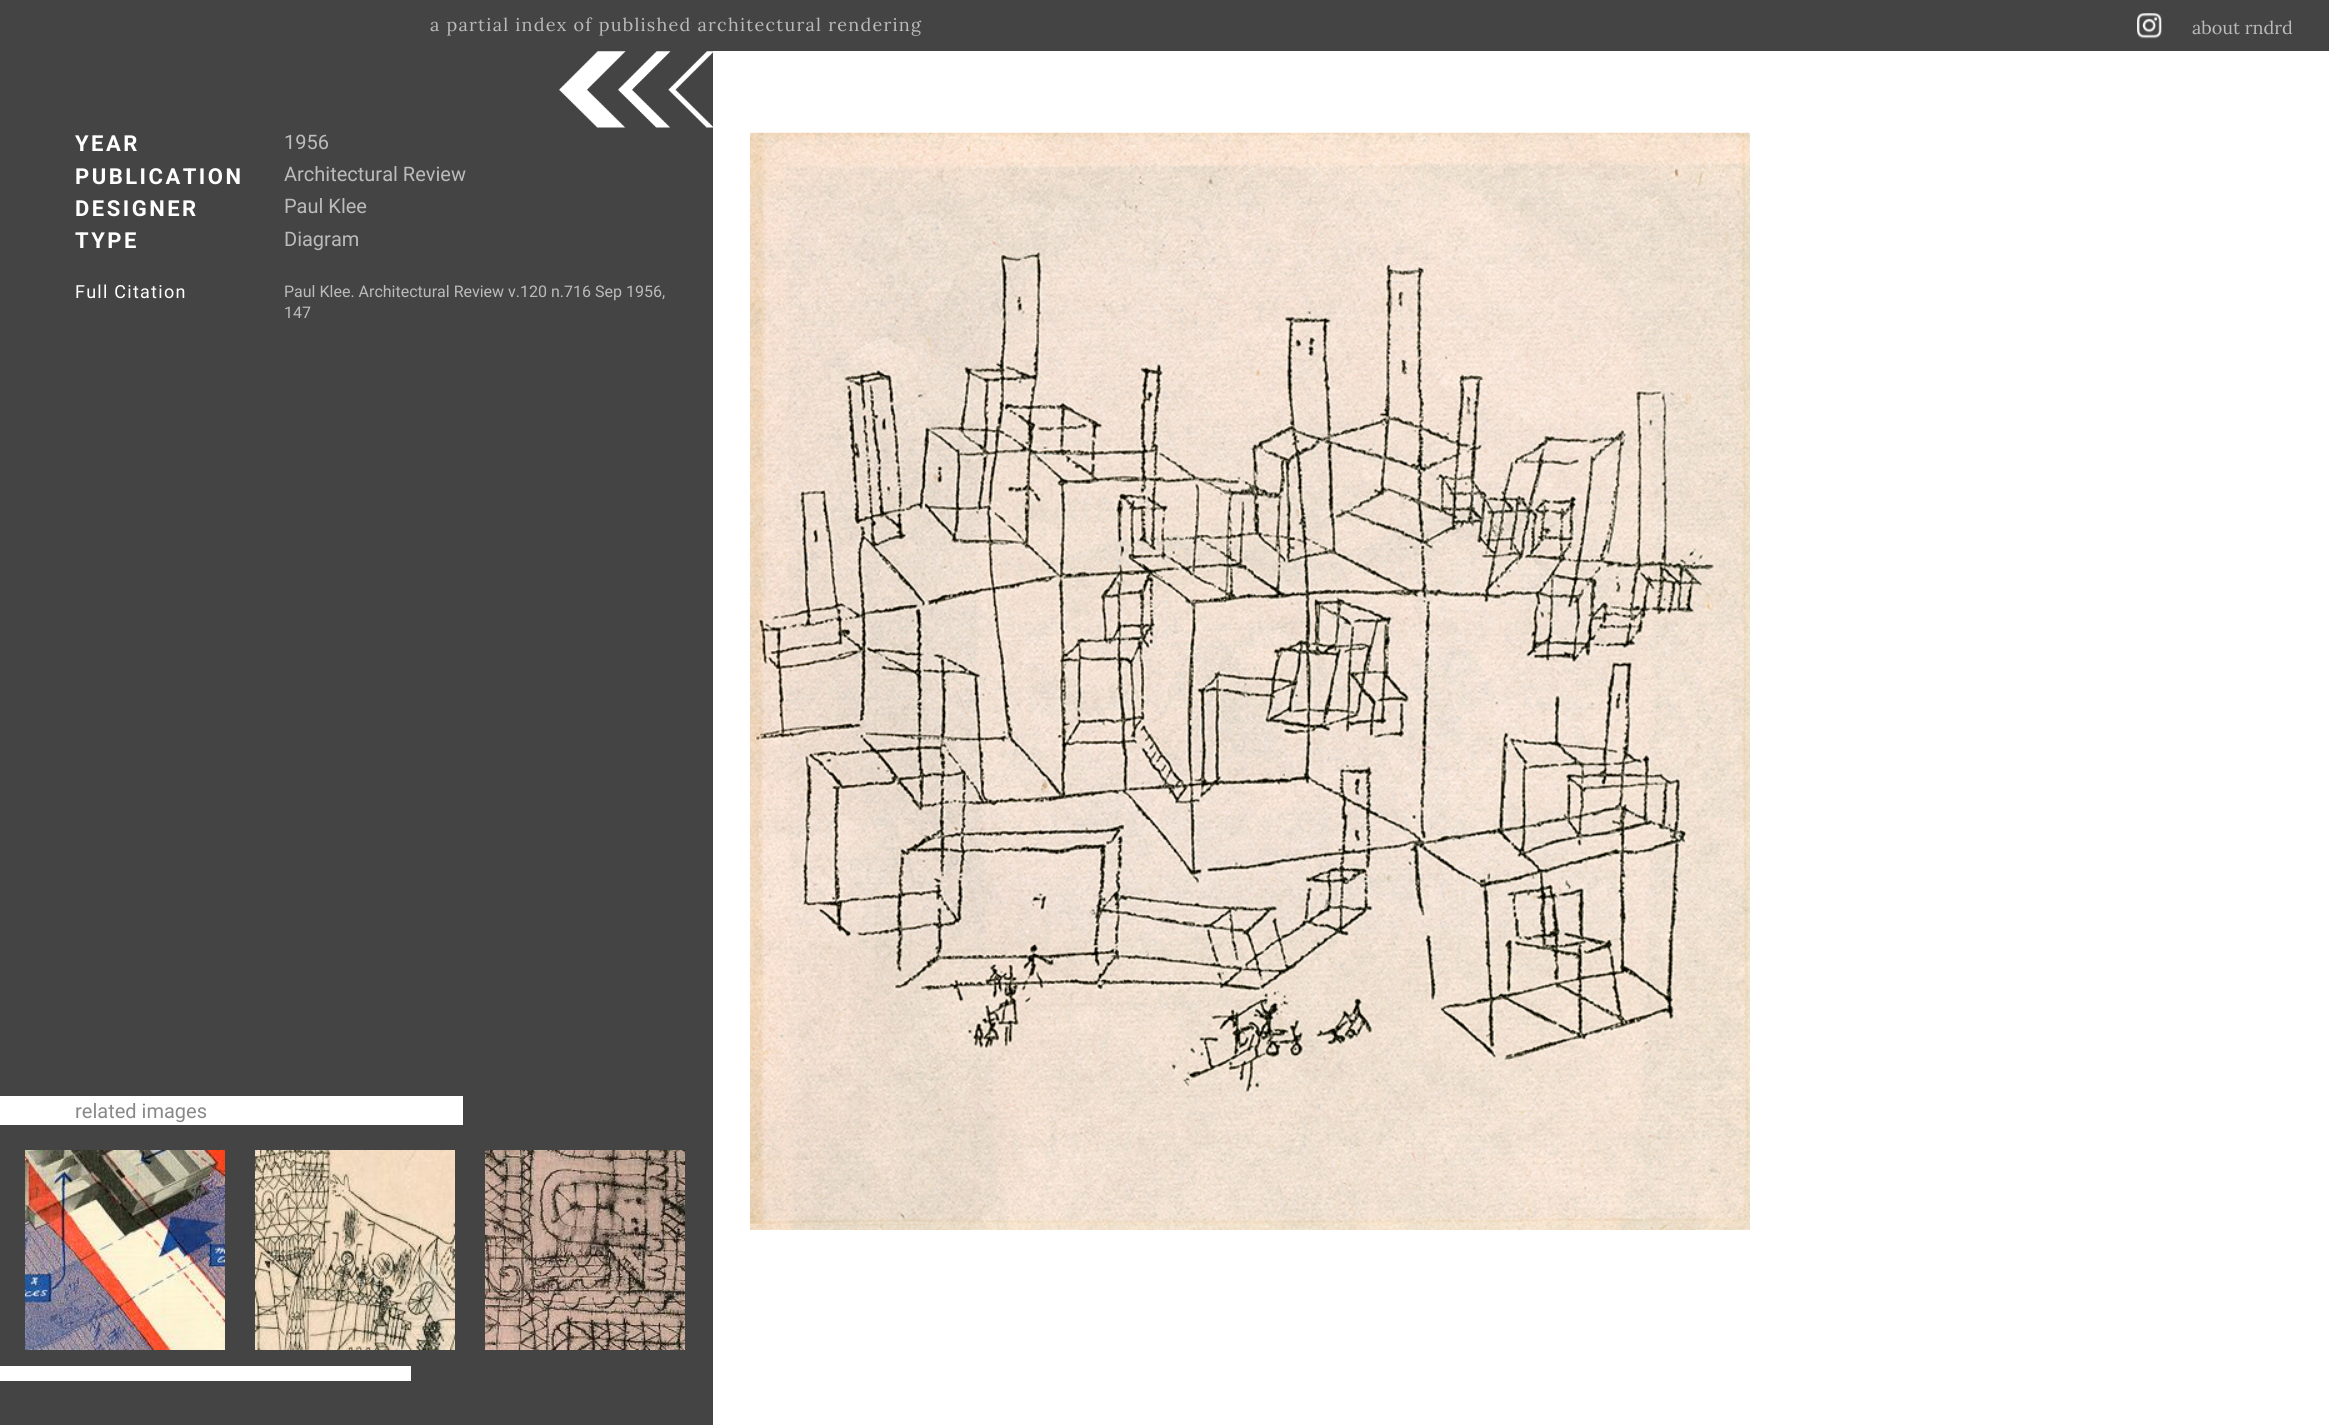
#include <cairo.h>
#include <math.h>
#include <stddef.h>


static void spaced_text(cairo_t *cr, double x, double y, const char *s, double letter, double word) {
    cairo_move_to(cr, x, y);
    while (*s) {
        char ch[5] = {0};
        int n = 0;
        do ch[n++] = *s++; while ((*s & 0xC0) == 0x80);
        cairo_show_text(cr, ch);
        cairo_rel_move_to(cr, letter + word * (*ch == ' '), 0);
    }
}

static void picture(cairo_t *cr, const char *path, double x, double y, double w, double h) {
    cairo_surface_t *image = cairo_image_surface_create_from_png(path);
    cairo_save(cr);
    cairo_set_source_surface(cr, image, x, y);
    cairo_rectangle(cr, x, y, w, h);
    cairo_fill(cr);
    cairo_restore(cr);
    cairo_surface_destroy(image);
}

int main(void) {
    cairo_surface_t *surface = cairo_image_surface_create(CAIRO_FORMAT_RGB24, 2329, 1425);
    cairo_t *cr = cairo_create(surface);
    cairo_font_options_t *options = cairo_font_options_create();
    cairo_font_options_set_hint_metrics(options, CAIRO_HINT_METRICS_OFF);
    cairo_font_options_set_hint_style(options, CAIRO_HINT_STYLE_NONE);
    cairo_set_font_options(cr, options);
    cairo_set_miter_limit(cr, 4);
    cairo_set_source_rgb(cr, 0.267, 0.267, 0.267);
    cairo_paint(cr);
    cairo_select_font_face(cr, "Lora", CAIRO_FONT_SLANT_NORMAL, CAIRO_FONT_WEIGHT_NORMAL);
    cairo_set_font_size(cr, 18);
    cairo_set_source_rgb(cr, 0.733, 0.733, 0.733);
    spaced_text(cr, 430, 31, "a partial index of published architectural rendering", 1.25, 0);
    picture(cr, "img1.png", 2137, 13, 25, 26);
    cairo_move_to(cr, 2192, 34);
    cairo_show_text(cr, "about rndrd");
    cairo_select_font_face(cr, "Roboto", CAIRO_FONT_SLANT_NORMAL, CAIRO_FONT_WEIGHT_BOLD);
    cairo_set_font_size(cr, 22);
    cairo_set_source_rgb(cr, 1, 1, 1);
    spaced_text(cr, 75, 151, "YEAR", 2.5, 0);
    cairo_select_font_face(cr, "Roboto", CAIRO_FONT_SLANT_NORMAL, CAIRO_FONT_WEIGHT_NORMAL);
    cairo_set_font_size(cr, 20);
    cairo_set_source_rgb(cr, 0.733, 0.733, 0.733);
    cairo_move_to(cr, 284, 149);
    cairo_show_text(cr, "1956");
    cairo_select_font_face(cr, "Roboto", CAIRO_FONT_SLANT_NORMAL, CAIRO_FONT_WEIGHT_BOLD);
    cairo_set_font_size(cr, 22);
    cairo_set_source_rgb(cr, 1, 1, 1);
    spaced_text(cr, 75, 184, "PUBLICATION", 2.5, 0);
    cairo_select_font_face(cr, "Roboto", CAIRO_FONT_SLANT_NORMAL, CAIRO_FONT_WEIGHT_NORMAL);
    cairo_set_font_size(cr, 20);
    cairo_set_source_rgb(cr, 0.733, 0.733, 0.733);
    cairo_move_to(cr, 284, 181);
    cairo_show_text(cr, "Architectural Review");
    cairo_select_font_face(cr, "Roboto", CAIRO_FONT_SLANT_NORMAL, CAIRO_FONT_WEIGHT_BOLD);
    cairo_set_font_size(cr, 22);
    cairo_set_source_rgb(cr, 1, 1, 1);
    spaced_text(cr, 75, 216, "DESIGNER", 2.5, 0);
    cairo_select_font_face(cr, "Roboto", CAIRO_FONT_SLANT_NORMAL, CAIRO_FONT_WEIGHT_NORMAL);
    cairo_set_font_size(cr, 20);
    cairo_set_source_rgb(cr, 0.733, 0.733, 0.733);
    cairo_move_to(cr, 284, 213);
    cairo_show_text(cr, "Paul Klee");
    cairo_select_font_face(cr, "Roboto", CAIRO_FONT_SLANT_NORMAL, CAIRO_FONT_WEIGHT_BOLD);
    cairo_set_font_size(cr, 22);
    cairo_set_source_rgb(cr, 1, 1, 1);
    spaced_text(cr, 75, 248, "TYPE", 2.5, 0);
    cairo_select_font_face(cr, "Roboto", CAIRO_FONT_SLANT_NORMAL, CAIRO_FONT_WEIGHT_NORMAL);
    cairo_set_font_size(cr, 20);
    cairo_set_source_rgb(cr, 0.733, 0.733, 0.733);
    cairo_move_to(cr, 284, 246);
    cairo_show_text(cr, "Diagram");
    cairo_set_font_size(cr, 18);
    cairo_set_source_rgb(cr, 1, 1, 1);
    spaced_text(cr, 75, 298, "Full Citation", 1.25, 0);
    cairo_set_font_size(cr, 16);
    cairo_set_source_rgb(cr, 0.733, 0.733, 0.733);
    cairo_move_to(cr, 284, 297);
    cairo_show_text(cr, "Paul Klee. Architectural Review v.120 n.716 Sep 1956,");
    cairo_move_to(cr, 284, 318);
    cairo_show_text(cr, "147");
    cairo_set_source_rgb(cr, 1, 1, 1);
    cairo_rectangle(cr, 0, 1096, 463, 29);
    cairo_fill(cr);
    cairo_set_font_size(cr, 20);
    cairo_set_source_rgb(cr, 0.533, 0.533, 0.533);
    cairo_move_to(cr, 75, 1118);
    cairo_show_text(cr, "related images");
    picture(cr, "img2.png", 25, 1150, 200, 200);
    picture(cr, "img3.png", 255, 1150, 200, 200);
    picture(cr, "img4.png", 485, 1150, 200, 200);
    cairo_set_source_rgb(cr, 1, 1, 1);
    cairo_rectangle(cr, 0, 1366, 411, 15);
    cairo_fill(cr);
    cairo_rectangle(cr, 713, 51, 1616, 1374);
    cairo_fill(cr);
    picture(cr, "img5.png", 558, 51, 155, 77);
    picture(cr, "img6.png", 750, 132, 1000, 1098);
    cairo_surface_write_to_png(surface, "page.png");
    cairo_font_options_destroy(options);
    cairo_destroy(cr);
    cairo_surface_destroy(surface);
    return 0;
}
